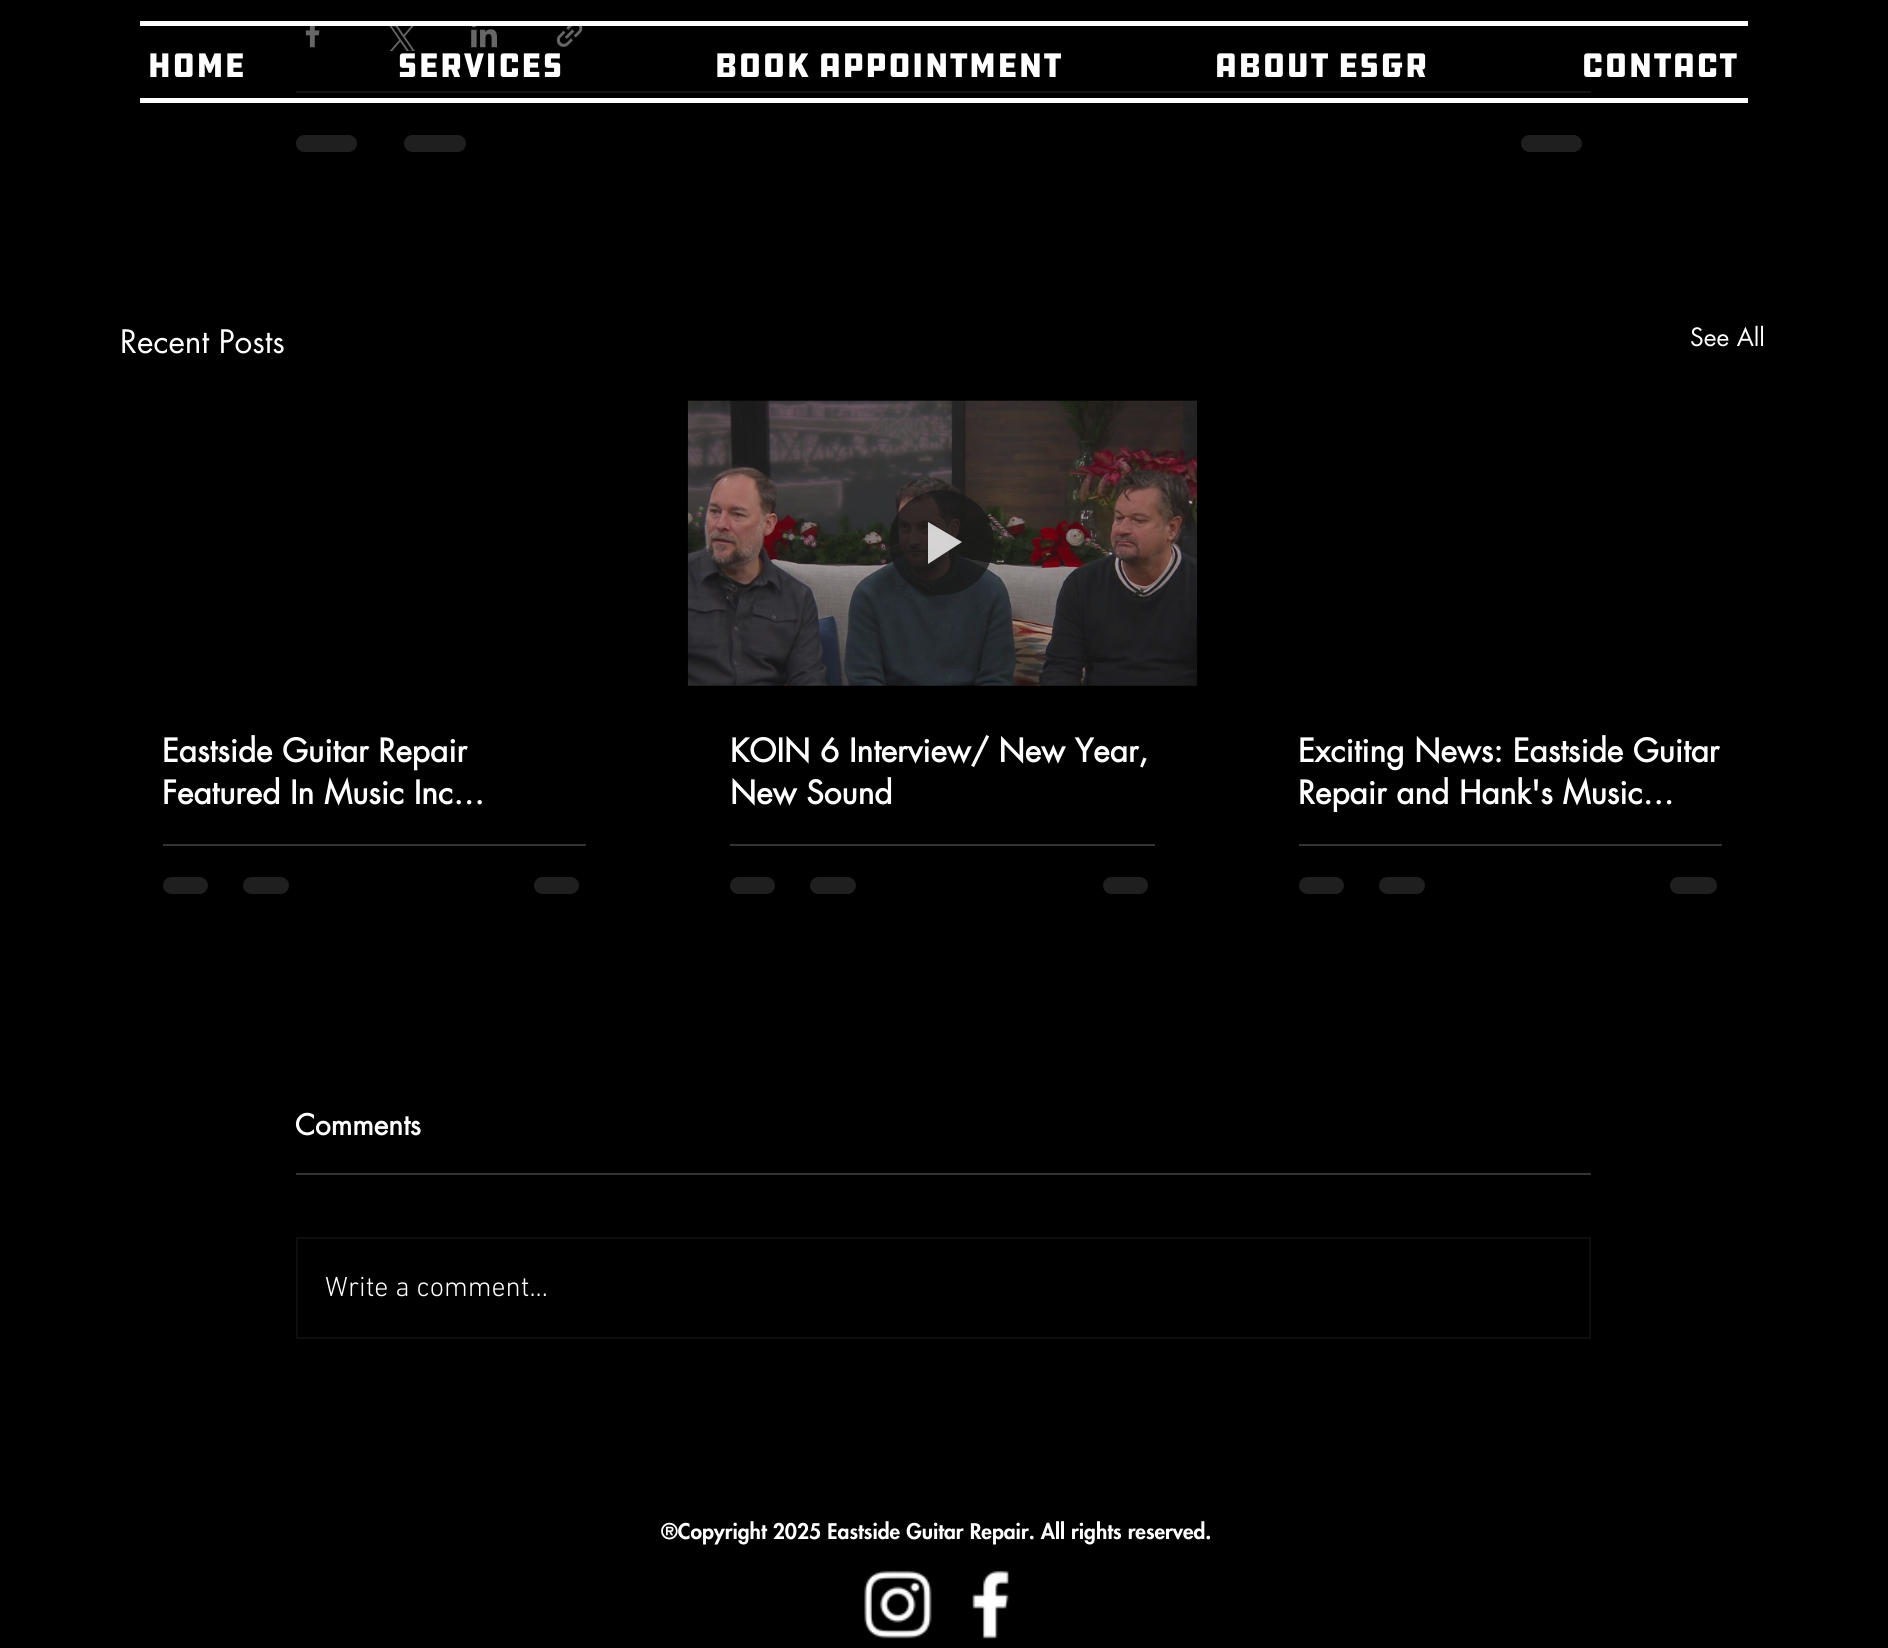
#include <cairo.h>
#include <math.h>
#include <stddef.h>


static void round_rect(cairo_t *cr, double x, double y, double w, double h, double r) {
    cairo_new_sub_path(cr);
    cairo_arc(cr, x + w - r, y + h - r, r, 0, M_PI / 2);
    cairo_arc(cr, x + r, y + h - r, r, M_PI / 2, M_PI);
    cairo_arc(cr, x + r, y + r, r, M_PI, 1.5 * M_PI);
    cairo_arc(cr, x + w - r, y + r, r, 1.5 * M_PI, 2 * M_PI);
    cairo_close_path(cr);
}

static void picture(cairo_t *cr, const char *path, double x, double y, double w, double h) {
    cairo_surface_t *image = cairo_image_surface_create_from_png(path);
    cairo_save(cr);
    cairo_set_source_surface(cr, image, x, y);
    cairo_rectangle(cr, x, y, w, h);
    cairo_fill(cr);
    cairo_restore(cr);
    cairo_surface_destroy(image);
}

int main(void) {
    cairo_surface_t *surface = cairo_image_surface_create(CAIRO_FORMAT_RGB24, 1888, 1648);
    cairo_t *cr = cairo_create(surface);
    cairo_font_options_t *options = cairo_font_options_create();
    cairo_font_options_set_hint_metrics(options, CAIRO_HINT_METRICS_OFF);
    cairo_font_options_set_hint_style(options, CAIRO_HINT_STYLE_NONE);
    cairo_set_font_options(cr, options);
    cairo_set_miter_limit(cr, 4);
    cairo_set_source_rgb(cr, 0, 0, 0);
    cairo_paint(cr);
    cairo_set_source_rgb(cr, 1, 1, 1);
    cairo_rectangle(cr, 140, 21, 1608, 5);
    cairo_fill(cr);
    cairo_select_font_face(cr, "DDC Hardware", CAIRO_FONT_SLANT_NORMAL, CAIRO_FONT_WEIGHT_NORMAL);
    cairo_set_font_size(cr, 35);
    cairo_move_to(cr, 147, 77);
    cairo_show_text(cr, "HOME");
    cairo_move_to(cr, 397, 77);
    cairo_show_text(cr, "SERVICES");
    cairo_move_to(cr, 714, 77);
    cairo_show_text(cr, "BOOK APPOINTMENT");
    cairo_move_to(cr, 1214, 77);
    cairo_show_text(cr, "ABOUT ESGR");
    cairo_move_to(cr, 1581, 77);
    cairo_show_text(cr, "CONTACT");
    cairo_rectangle(cr, 140, 98, 1608, 5);
    cairo_fill(cr);
    picture(cr, "img1.png", 305, 26, 15, 22);
    picture(cr, "img2.png", 389, 26, 26, 25);
    picture(cr, "img3.png", 471, 26, 26, 22);
    picture(cr, "img4.png", 556, 26, 27, 21);
    cairo_set_source_rgb(cr, 0.078, 0.078, 0.078);
    cairo_rectangle(cr, 296, 91, 1295, 2);
    cairo_fill(cr);
    cairo_set_source_rgb(cr, 0.122, 0.122, 0.122);
    round_rect(cr, 296, 135, 61, 17, 8.5);
    cairo_fill(cr);
    round_rect(cr, 404, 135, 62, 17, 8.5);
    cairo_fill(cr);
    round_rect(cr, 1521, 135, 61, 17, 8.5);
    cairo_fill(cr);
    cairo_select_font_face(cr, "futura", CAIRO_FONT_SLANT_NORMAL, CAIRO_FONT_WEIGHT_NORMAL);
    cairo_set_font_size(cr, 31.5);
    cairo_set_source_rgb(cr, 1, 1, 1);
    cairo_move_to(cr, 120, 353);
    cairo_show_text(cr, "Recent Posts");
    cairo_set_font_size(cr, 24.5);
    cairo_move_to(cr, 1690, 346);
    cairo_show_text(cr, "See All");
    cairo_select_font_face(cr, "futura", CAIRO_FONT_SLANT_NORMAL, CAIRO_FONT_WEIGHT_BOLD);
    cairo_set_font_size(cr, 31.5);
    cairo_move_to(cr, 162, 762);
    cairo_show_text(cr, "Eastside Guitar Repair");
    cairo_move_to(cr, 162, 804);
    cairo_show_text(cr, "Featured In Music Inc…");
    cairo_set_source_rgb(cr, 0.2, 0.2, 0.2);
    cairo_rectangle(cr, 163, 844, 423, 2);
    cairo_fill(cr);
    cairo_set_source_rgb(cr, 0.122, 0.122, 0.122);
    round_rect(cr, 163, 877, 45, 17, 8.5);
    cairo_fill(cr);
    round_rect(cr, 243, 877, 46, 17, 8.5);
    cairo_fill(cr);
    round_rect(cr, 534, 877, 45, 17, 8.5);
    cairo_fill(cr);
    picture(cr, "img5.png", 687, 400, 510, 286);
    cairo_set_source_rgba(cr, 0.102, 0.102, 0.102, 0.8);
    cairo_arc(cr, 941.5, 542.5, 52.5, 0, 2 * M_PI);
    cairo_fill(cr);
    cairo_set_source_rgba(cr, 1, 1, 1, 0.8);
    cairo_new_path(cr);
    cairo_move_to(cr, 928, 522);
    cairo_line_to(cr, 928, 564);
    cairo_line_to(cr, 962, 542);
    cairo_close_path(cr);
    cairo_fill(cr);
    cairo_set_source_rgb(cr, 1, 1, 1);
    cairo_move_to(cr, 730, 762);
    cairo_show_text(cr, "KOIN 6 Interview/ New Year,");
    cairo_move_to(cr, 730, 804);
    cairo_show_text(cr, "New Sound");
    cairo_set_source_rgb(cr, 0.2, 0.2, 0.2);
    cairo_rectangle(cr, 730, 844, 425, 2);
    cairo_fill(cr);
    cairo_set_source_rgb(cr, 0.122, 0.122, 0.122);
    round_rect(cr, 730, 877, 45, 17, 8.5);
    cairo_fill(cr);
    round_rect(cr, 810, 877, 46, 17, 8.5);
    cairo_fill(cr);
    round_rect(cr, 1103, 877, 45, 17, 8.5);
    cairo_fill(cr);
    cairo_set_source_rgb(cr, 1, 1, 1);
    cairo_move_to(cr, 1298, 762);
    cairo_show_text(cr, "Exciting News: Eastside Guitar");
    cairo_save(cr);
    cairo_rectangle(cr, 1299, 728, 423, 84);
    cairo_clip(cr);
    cairo_move_to(cr, 1298, 804);
    cairo_show_text(cr, "Repair and Hank's Music…");
    cairo_restore(cr);
    cairo_set_source_rgb(cr, 0.2, 0.2, 0.2);
    cairo_rectangle(cr, 1299, 844, 423, 2);
    cairo_fill(cr);
    cairo_set_source_rgb(cr, 0.122, 0.122, 0.122);
    round_rect(cr, 1299, 877, 45, 17, 8.5);
    cairo_fill(cr);
    round_rect(cr, 1379, 877, 46, 17, 8.5);
    cairo_fill(cr);
    round_rect(cr, 1670, 877, 47, 17, 8.5);
    cairo_fill(cr);
    cairo_set_font_size(cr, 28);
    cairo_set_source_rgb(cr, 1, 1, 1);
    cairo_move_to(cr, 295, 1135);
    cairo_show_text(cr, "Comments");
    cairo_set_source_rgb(cr, 0.2, 0.2, 0.2);
    cairo_rectangle(cr, 296, 1173, 1295, 2);
    cairo_fill(cr);
    cairo_rectangle(cr, 297, 1238, 1293, 100);
    cairo_set_source_rgb(cr, 0.055, 0.055, 0.055);
    cairo_stroke(cr);
    cairo_select_font_face(cr, "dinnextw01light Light", CAIRO_FONT_SLANT_NORMAL, CAIRO_FONT_WEIGHT_NORMAL);
    cairo_set_source_rgb(cr, 1, 1, 1);
    cairo_move_to(cr, 325, 1296);
    cairo_show_text(cr, "Write a comment...");
    cairo_select_font_face(cr, "Futura Black", CAIRO_FONT_SLANT_NORMAL, CAIRO_FONT_WEIGHT_NORMAL);
    cairo_set_font_size(cr, 21);
    cairo_move_to(cr, 661, 1539);
    cairo_show_text(cr, "®Copyright 2025 Eastside Guitar Repair. All rights reserved.");
    picture(cr, "img6.png", 864, 1570, 68, 69);
    picture(cr, "img7.png", 972, 1570, 37, 69);
    cairo_surface_write_to_png(surface, "page.png");
    cairo_font_options_destroy(options);
    cairo_destroy(cr);
    cairo_surface_destroy(surface);
    return 0;
}
